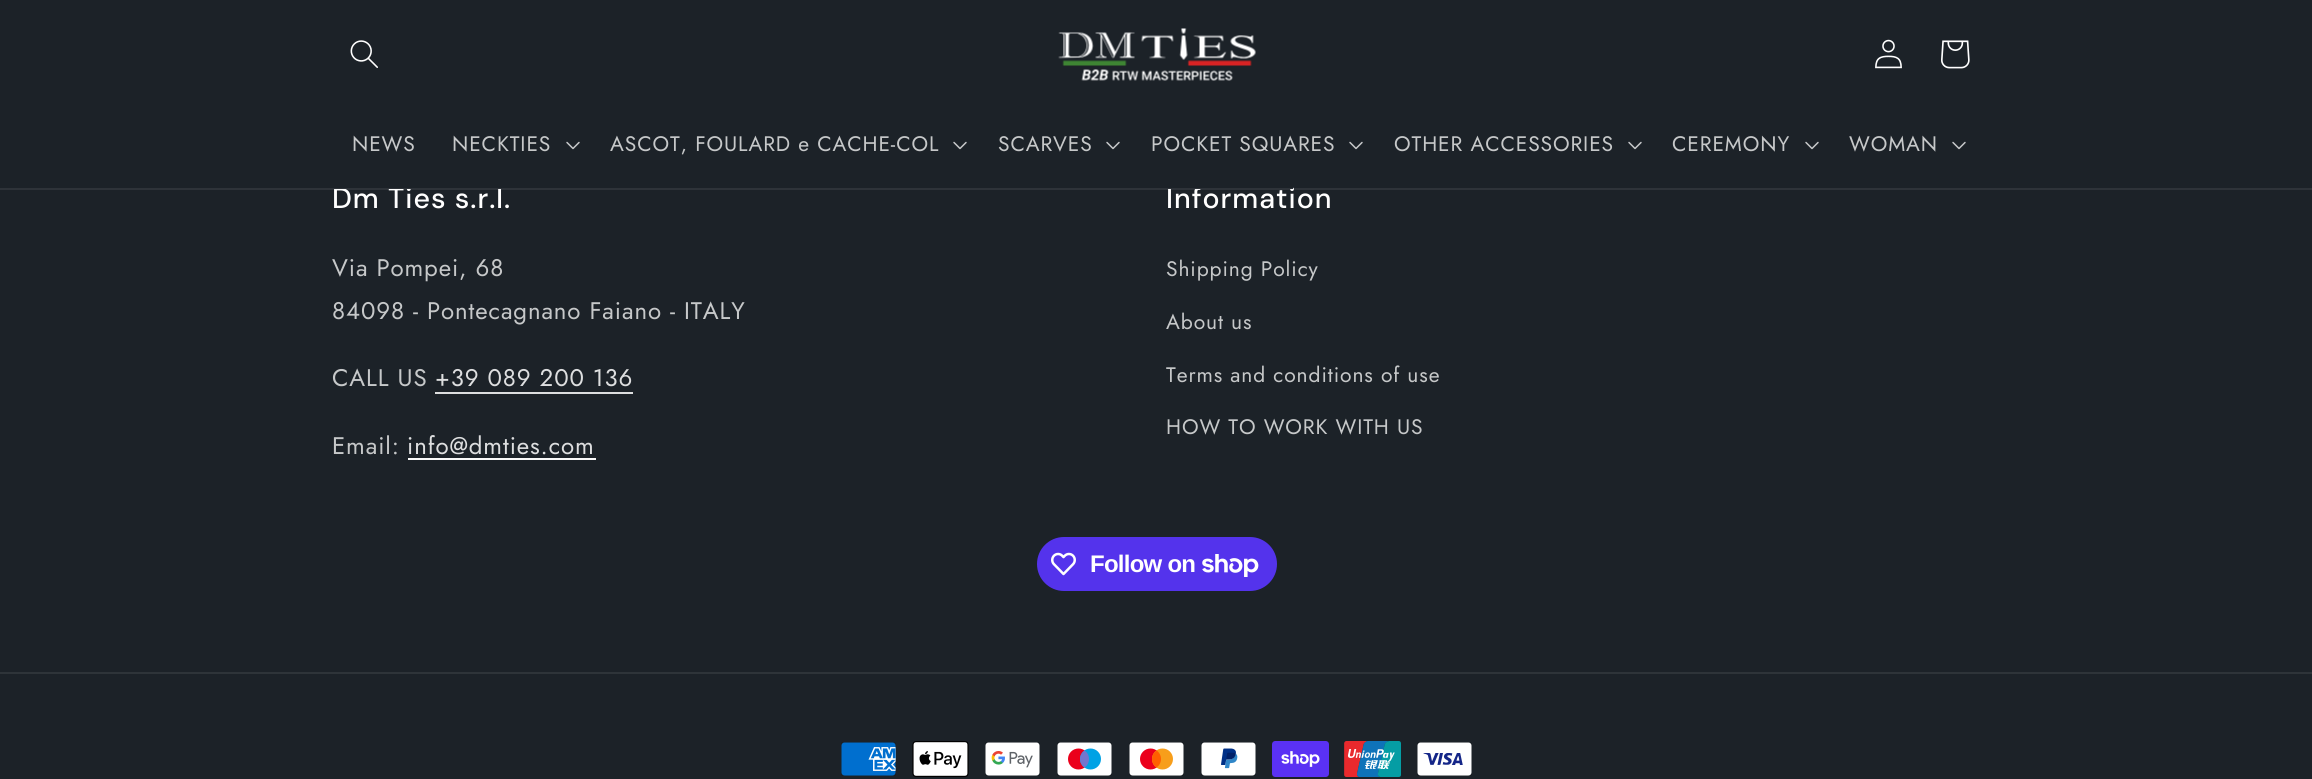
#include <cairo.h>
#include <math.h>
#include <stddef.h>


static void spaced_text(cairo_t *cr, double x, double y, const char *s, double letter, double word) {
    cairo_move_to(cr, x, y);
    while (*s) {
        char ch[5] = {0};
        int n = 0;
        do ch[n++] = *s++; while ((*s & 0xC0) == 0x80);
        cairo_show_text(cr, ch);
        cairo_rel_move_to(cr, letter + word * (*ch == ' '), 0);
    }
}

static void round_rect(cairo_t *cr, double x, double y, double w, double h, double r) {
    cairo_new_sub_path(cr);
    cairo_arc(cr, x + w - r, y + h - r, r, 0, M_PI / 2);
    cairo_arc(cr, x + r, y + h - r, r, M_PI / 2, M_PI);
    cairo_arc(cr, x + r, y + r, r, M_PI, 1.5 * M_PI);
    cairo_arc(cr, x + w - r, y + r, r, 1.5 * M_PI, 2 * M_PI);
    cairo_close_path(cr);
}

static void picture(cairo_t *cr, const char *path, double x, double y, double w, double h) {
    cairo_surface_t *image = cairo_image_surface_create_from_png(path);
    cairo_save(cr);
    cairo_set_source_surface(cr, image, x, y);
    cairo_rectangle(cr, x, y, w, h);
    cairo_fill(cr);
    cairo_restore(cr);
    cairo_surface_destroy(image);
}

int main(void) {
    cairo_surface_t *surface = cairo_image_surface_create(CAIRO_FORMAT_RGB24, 2312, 779);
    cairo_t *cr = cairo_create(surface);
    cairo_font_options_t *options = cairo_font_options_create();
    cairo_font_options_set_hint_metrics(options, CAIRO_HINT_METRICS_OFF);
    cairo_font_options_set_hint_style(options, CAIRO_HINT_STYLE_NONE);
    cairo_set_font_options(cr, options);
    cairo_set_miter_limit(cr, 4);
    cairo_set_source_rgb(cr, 0.11, 0.133, 0.157);
    cairo_paint(cr);
    cairo_select_font_face(cr, "DM Sans Medium", CAIRO_FONT_SLANT_NORMAL, CAIRO_FONT_WEIGHT_NORMAL);
    cairo_set_font_size(cr, 28.5);
    cairo_set_source_rgb(cr, 1, 1, 1);
    spaced_text(cr, 332, 208, "Dm Ties s.r.l.", 1, 0);
    spaced_text(cr, 1166, 208, "Information", 1, 0);
    cairo_set_source_rgb(cr, 0.11, 0.133, 0.157);
    cairo_rectangle(cr, 333, 187, 960, 2);
    cairo_fill(cr);
    cairo_set_source_rgba(cr, 1, 1, 1, 0.08);
    cairo_rectangle(cr, 0, 188, 2312, 2);
    cairo_fill(cr);
    picture(cr, "img1.png", 350, 40, 28, 28);
    picture(cr, "img2.png", 1058, 28, 198, 53);
    picture(cr, "img3.png", 1875, 39, 27, 30);
    picture(cr, "img4.png", 1941, 40, 29, 29);
    cairo_select_font_face(cr, "Jost", CAIRO_FONT_SLANT_NORMAL, CAIRO_FONT_WEIGHT_NORMAL);
    cairo_set_font_size(cr, 21);
    cairo_set_source_rgb(cr, 0.776, 0.784, 0.788);
    spaced_text(cr, 352, 151, "NEWS", 0.9, 0);
    spaced_text(cr, 452, 151, "NECKTIES", 0.9, 0);
    picture(cr, "img5.png", 566, 141, 14, 9);
    spaced_text(cr, 610, 151, "ASCOT, FOULARD e CACHE-COL", 0.9, 0);
    picture(cr, "img5.png", 953, 141, 14, 9);
    spaced_text(cr, 998, 151, "SCARVES", 0.9, 0);
    picture(cr, "img5.png", 1106, 141, 14, 9);
    spaced_text(cr, 1151, 151, "POCKET SQUARES", 0.9, 0);
    picture(cr, "img5.png", 1349, 141, 14, 9);
    spaced_text(cr, 1394, 151, "OTHER ACCESSORIES", 0.9, 0);
    picture(cr, "img5.png", 1628, 141, 14, 9);
    spaced_text(cr, 1672, 151, "CEREMONY", 0.9, 0);
    picture(cr, "img5.png", 1805, 141, 14, 9);
    spaced_text(cr, 1849, 151, "WOMAN", 0.9, 0);
    picture(cr, "img5.png", 1952, 141, 14, 9);
    cairo_set_font_size(cr, 24);
    spaced_text(cr, 332, 276, "Via Pompei, 68", 0.9, 0);
    spaced_text(cr, 332, 319, "84098 - Pontecagnano Faiano - ITALY", 0.9, 0);
    spaced_text(cr, 332, 386, "CALL US", 0.9, 0);
    cairo_set_source_rgb(cr, 0.867, 0.871, 0.875);
    spaced_text(cr, 435, 386, "+39 089 200 136", 0.9, 0);
    cairo_rectangle(cr, 435, 392, 198, 2);
    cairo_fill(cr);
    cairo_set_source_rgb(cr, 0.776, 0.784, 0.788);
    spaced_text(cr, 332, 454, "Email:", 0.9, 0);
    cairo_set_source_rgb(cr, 0.867, 0.871, 0.875);
    spaced_text(cr, 407, 454, "info@dmties.com", 0.9, 0);
    cairo_set_source_rgb(cr, 0.98, 0.98, 0.98);
    cairo_rectangle(cr, 408, 458, 188, 2);
    cairo_fill(cr);
    cairo_set_font_size(cr, 21);
    cairo_set_source_rgb(cr, 0.776, 0.784, 0.788);
    spaced_text(cr, 1166, 276, "Shipping Policy", 0.9, 0);
    spaced_text(cr, 1166, 329, "About us", 0.9, 0);
    spaced_text(cr, 1166, 382, "Terms and conditions of use", 0.9, 0);
    spaced_text(cr, 1166, 434, "HOW TO WORK WITH US", 0.9, 0);
    cairo_set_source_rgb(cr, 0.329, 0.2, 0.922);
    round_rect(cr, 1037, 537, 240, 54, 27);
    cairo_fill(cr);
    picture(cr, "img6.png", 1051, 552, 25, 24);
    cairo_select_font_face(cr, "Liberation Sans", CAIRO_FONT_SLANT_NORMAL, CAIRO_FONT_WEIGHT_BOLD);
    cairo_set_font_size(cr, 24);
    cairo_set_source_rgb(cr, 1, 1, 1);
    spaced_text(cr, 1090, 572, "Follow on", -0.75, 0);
    picture(cr, "img7.png", 1202, 554, 57, 23);
    cairo_set_source_rgb(cr, 0.18, 0.204, 0.224);
    cairo_rectangle(cr, 0, 672, 2312, 2);
    cairo_fill(cr);
    picture(cr, "img8.png", 841, 742, 55, 34);
    picture(cr, "img9.png", 912, 741, 57, 36);
    picture(cr, "img10.png", 985, 742, 55, 34);
    picture(cr, "img11.png", 1057, 742, 55, 34);
    picture(cr, "img12.png", 1129, 742, 55, 34);
    picture(cr, "img13.png", 1201, 742, 55, 34);
    picture(cr, "img14.png", 1272, 741, 57, 36);
    picture(cr, "img15.png", 1344, 741, 57, 36);
    picture(cr, "img16.png", 1417, 742, 55, 34);
    cairo_surface_write_to_png(surface, "page.png");
    cairo_font_options_destroy(options);
    cairo_destroy(cr);
    cairo_surface_destroy(surface);
    return 0;
}
